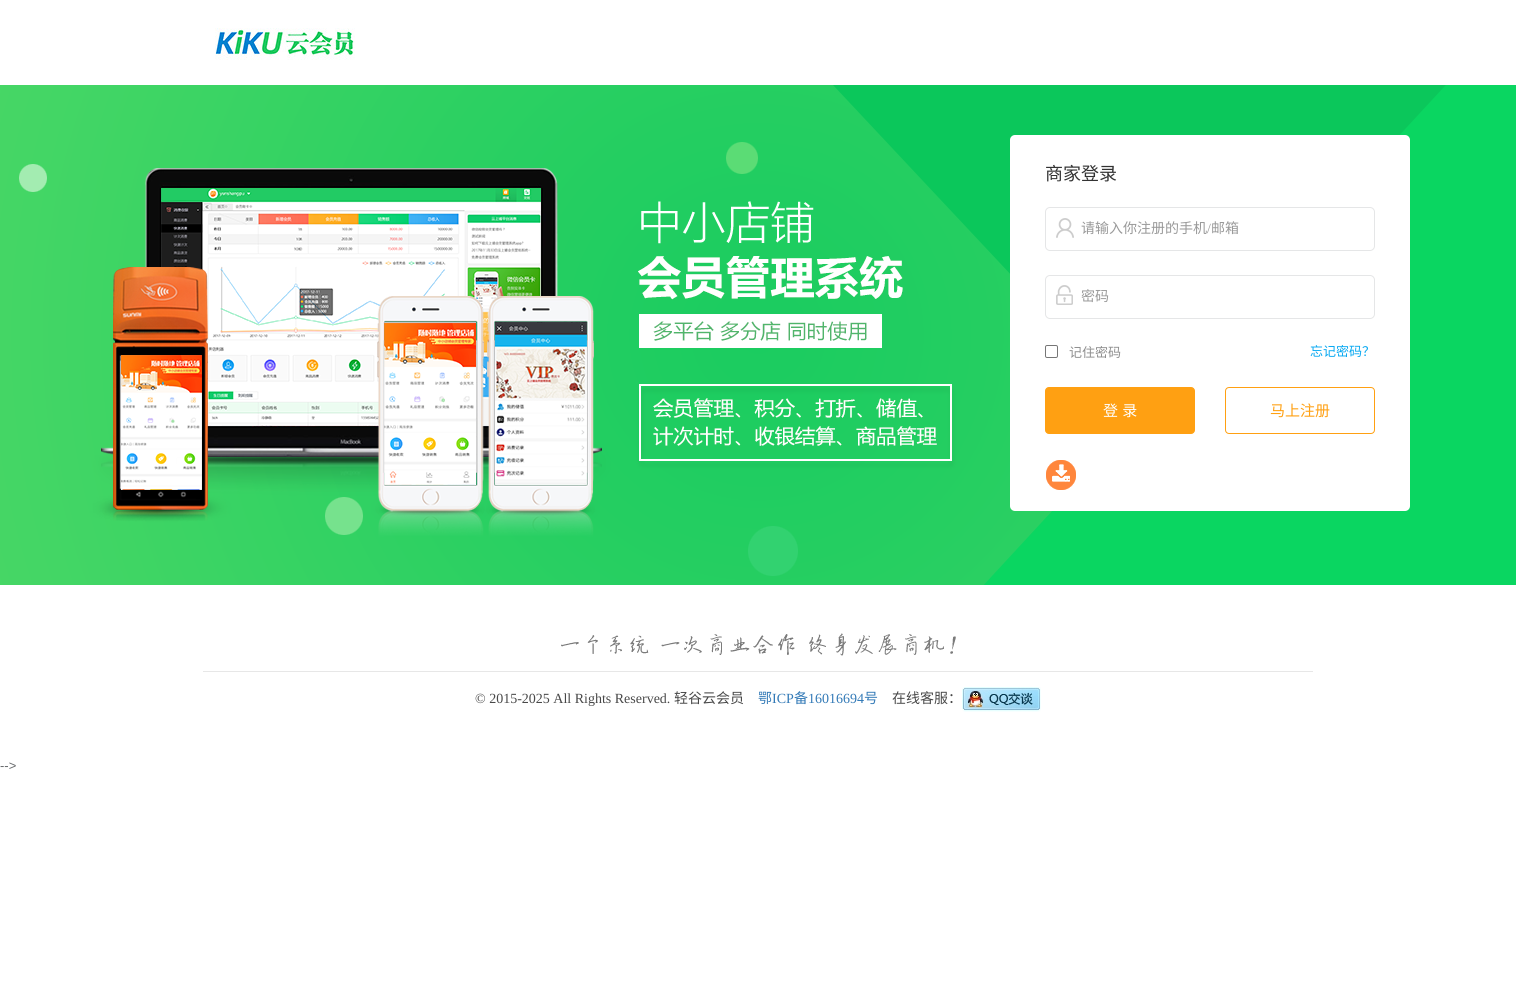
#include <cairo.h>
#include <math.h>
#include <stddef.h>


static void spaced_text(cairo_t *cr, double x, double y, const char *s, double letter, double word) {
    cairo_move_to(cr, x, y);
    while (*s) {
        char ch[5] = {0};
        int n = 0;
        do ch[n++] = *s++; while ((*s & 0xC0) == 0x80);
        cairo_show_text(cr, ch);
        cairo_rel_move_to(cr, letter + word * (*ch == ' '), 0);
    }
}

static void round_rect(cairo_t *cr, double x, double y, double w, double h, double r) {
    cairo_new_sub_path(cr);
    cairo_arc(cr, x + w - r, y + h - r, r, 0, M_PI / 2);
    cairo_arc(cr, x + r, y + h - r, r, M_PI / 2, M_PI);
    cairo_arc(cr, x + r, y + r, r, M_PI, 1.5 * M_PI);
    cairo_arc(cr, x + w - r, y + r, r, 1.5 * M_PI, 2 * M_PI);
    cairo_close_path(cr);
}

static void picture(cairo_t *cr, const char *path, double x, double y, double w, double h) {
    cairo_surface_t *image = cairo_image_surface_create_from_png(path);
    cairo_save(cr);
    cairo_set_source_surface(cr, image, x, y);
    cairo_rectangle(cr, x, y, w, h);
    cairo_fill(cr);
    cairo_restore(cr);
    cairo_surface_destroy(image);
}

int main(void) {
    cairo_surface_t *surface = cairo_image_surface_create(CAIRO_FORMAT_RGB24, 1516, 1005);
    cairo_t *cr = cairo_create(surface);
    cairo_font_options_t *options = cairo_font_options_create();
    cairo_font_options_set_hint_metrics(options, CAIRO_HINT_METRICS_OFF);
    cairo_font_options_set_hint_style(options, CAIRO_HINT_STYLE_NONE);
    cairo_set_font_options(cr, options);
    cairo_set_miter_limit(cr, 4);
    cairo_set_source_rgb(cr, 1, 1, 1);
    cairo_paint(cr);
    picture(cr, "img1.png", 215, 28, 140, 32);
    picture(cr, "img2.png", 0, 85, 1516, 500);
    cairo_set_source_rgb(cr, 1, 1, 1);
    round_rect(cr, 1010, 135, 400, 376, 5);
    cairo_fill(cr);
    cairo_select_font_face(cr, "Noto Sans CJK SC", CAIRO_FONT_SLANT_NORMAL, CAIRO_FONT_WEIGHT_NORMAL);
    cairo_set_font_size(cr, 18);
    cairo_set_source_rgb(cr, 0.2, 0.2, 0.2);
    cairo_move_to(cr, 1045, 180);
    cairo_show_text(cr, "商家登录");
    picture(cr, "img3.png", 1056, 218, 18, 20);
    round_rect(cr, 1045.5, 207.5, 329, 43, 4.5);
    cairo_set_source_rgb(cr, 0.898, 0.902, 0.906);
    cairo_set_line_width(cr, 1);
    cairo_stroke(cr);
    cairo_set_font_size(cr, 14);
    cairo_set_source_rgb(cr, 0.6, 0.6, 0.6);
    cairo_move_to(cr, 1081, 233);
    cairo_show_text(cr, "请输入你注册的手机");
    cairo_select_font_face(cr, "Liberation Serif", CAIRO_FONT_SLANT_NORMAL, CAIRO_FONT_WEIGHT_NORMAL);
    cairo_move_to(cr, 1207, 233);
    cairo_show_text(cr, "/");
    cairo_select_font_face(cr, "Noto Sans CJK SC", CAIRO_FONT_SLANT_NORMAL, CAIRO_FONT_WEIGHT_NORMAL);
    cairo_move_to(cr, 1211, 233);
    cairo_show_text(cr, "邮箱");
    picture(cr, "img4.png", 1056, 285, 17, 20);
    round_rect(cr, 1045.5, 275.5, 329, 43, 4.5);
    cairo_set_source_rgb(cr, 0.898, 0.902, 0.906);
    cairo_stroke(cr);
    cairo_set_source_rgb(cr, 0.6, 0.6, 0.6);
    cairo_move_to(cr, 1081, 301);
    cairo_show_text(cr, "密码");
    round_rect(cr, 1045.5, 345.5, 12, 12, 1.5);
    cairo_set_source_rgb(cr, 0.463, 0.463, 0.463);
    cairo_stroke(cr);
    cairo_set_font_size(cr, 13);
    cairo_set_source_rgb(cr, 0.557, 0.557, 0.557);
    cairo_move_to(cr, 1069, 357);
    cairo_show_text(cr, "记住密码");
    cairo_set_source_rgb(cr, 0.024, 0.659, 0.945);
    cairo_move_to(cr, 1310, 356);
    cairo_show_text(cr, "忘记密码？");
    cairo_set_source_rgb(cr, 1, 0.627, 0.071);
    round_rect(cr, 1045.5, 387.5, 149, 46, 3.5);
    cairo_fill_preserve(cr);
    cairo_stroke(cr);
    cairo_set_font_size(cr, 15);
    cairo_set_source_rgb(cr, 1, 1, 1);
    spaced_text(cr, 1103, 416, "登 录", 0, 1);
    round_rect(cr, 1225.5, 387.5, 149, 46, 3.5);
    cairo_set_source_rgb(cr, 1, 0.627, 0.071);
    cairo_stroke(cr);
    cairo_move_to(cr, 1270, 416);
    cairo_show_text(cr, "马上注册");
    picture(cr, "img5.png", 1046, 460, 30, 30);
    picture(cr, "img6.png", 561, 633, 395, 23);
    cairo_set_source_rgb(cr, 0.906, 0.906, 0.906);
    cairo_rectangle(cr, 203, 671, 1110, 1);
    cairo_fill(cr);
    cairo_select_font_face(cr, "Liberation Serif", CAIRO_FONT_SLANT_NORMAL, CAIRO_FONT_WEIGHT_NORMAL);
    cairo_set_font_size(cr, 14);
    cairo_set_source_rgb(cr, 0.282, 0.282, 0.282);
    cairo_move_to(cr, 475, 703);
    cairo_show_text(cr, "© 2015-2025 All Rights Reserved.");
    cairo_select_font_face(cr, "Noto Sans CJK SC", CAIRO_FONT_SLANT_NORMAL, CAIRO_FONT_WEIGHT_NORMAL);
    cairo_move_to(cr, 674, 703);
    cairo_show_text(cr, "轻谷云会员");
    cairo_set_source_rgb(cr, 0.2, 0.478, 0.718);
    cairo_move_to(cr, 758, 703);
    cairo_show_text(cr, "鄂");
    cairo_select_font_face(cr, "Liberation Serif", CAIRO_FONT_SLANT_NORMAL, CAIRO_FONT_WEIGHT_NORMAL);
    cairo_move_to(cr, 772, 703);
    cairo_show_text(cr, "ICP");
    cairo_select_font_face(cr, "Noto Sans CJK SC", CAIRO_FONT_SLANT_NORMAL, CAIRO_FONT_WEIGHT_NORMAL);
    cairo_move_to(cr, 794, 703);
    cairo_show_text(cr, "备");
    cairo_select_font_face(cr, "Liberation Serif", CAIRO_FONT_SLANT_NORMAL, CAIRO_FONT_WEIGHT_NORMAL);
    cairo_move_to(cr, 808, 703);
    cairo_show_text(cr, "16016694");
    cairo_select_font_face(cr, "Noto Sans CJK SC", CAIRO_FONT_SLANT_NORMAL, CAIRO_FONT_WEIGHT_NORMAL);
    cairo_move_to(cr, 864, 703);
    cairo_show_text(cr, "号");
    cairo_set_source_rgb(cr, 0.282, 0.282, 0.282);
    cairo_move_to(cr, 892, 703);
    cairo_show_text(cr, "在线客服：");
    picture(cr, "img7.png", 962, 687, 79, 25);
    cairo_select_font_face(cr, "Liberation Sans", CAIRO_FONT_SLANT_NORMAL, CAIRO_FONT_WEIGHT_NORMAL);
    cairo_set_font_size(cr, 13);
    cairo_set_source_rgb(cr, 0.404, 0.416, 0.424);
    cairo_move_to(cr, 0, 770);
    cairo_show_text(cr, "-->");
    cairo_surface_write_to_png(surface, "page.png");
    cairo_font_options_destroy(options);
    cairo_destroy(cr);
    cairo_surface_destroy(surface);
    return 0;
}
